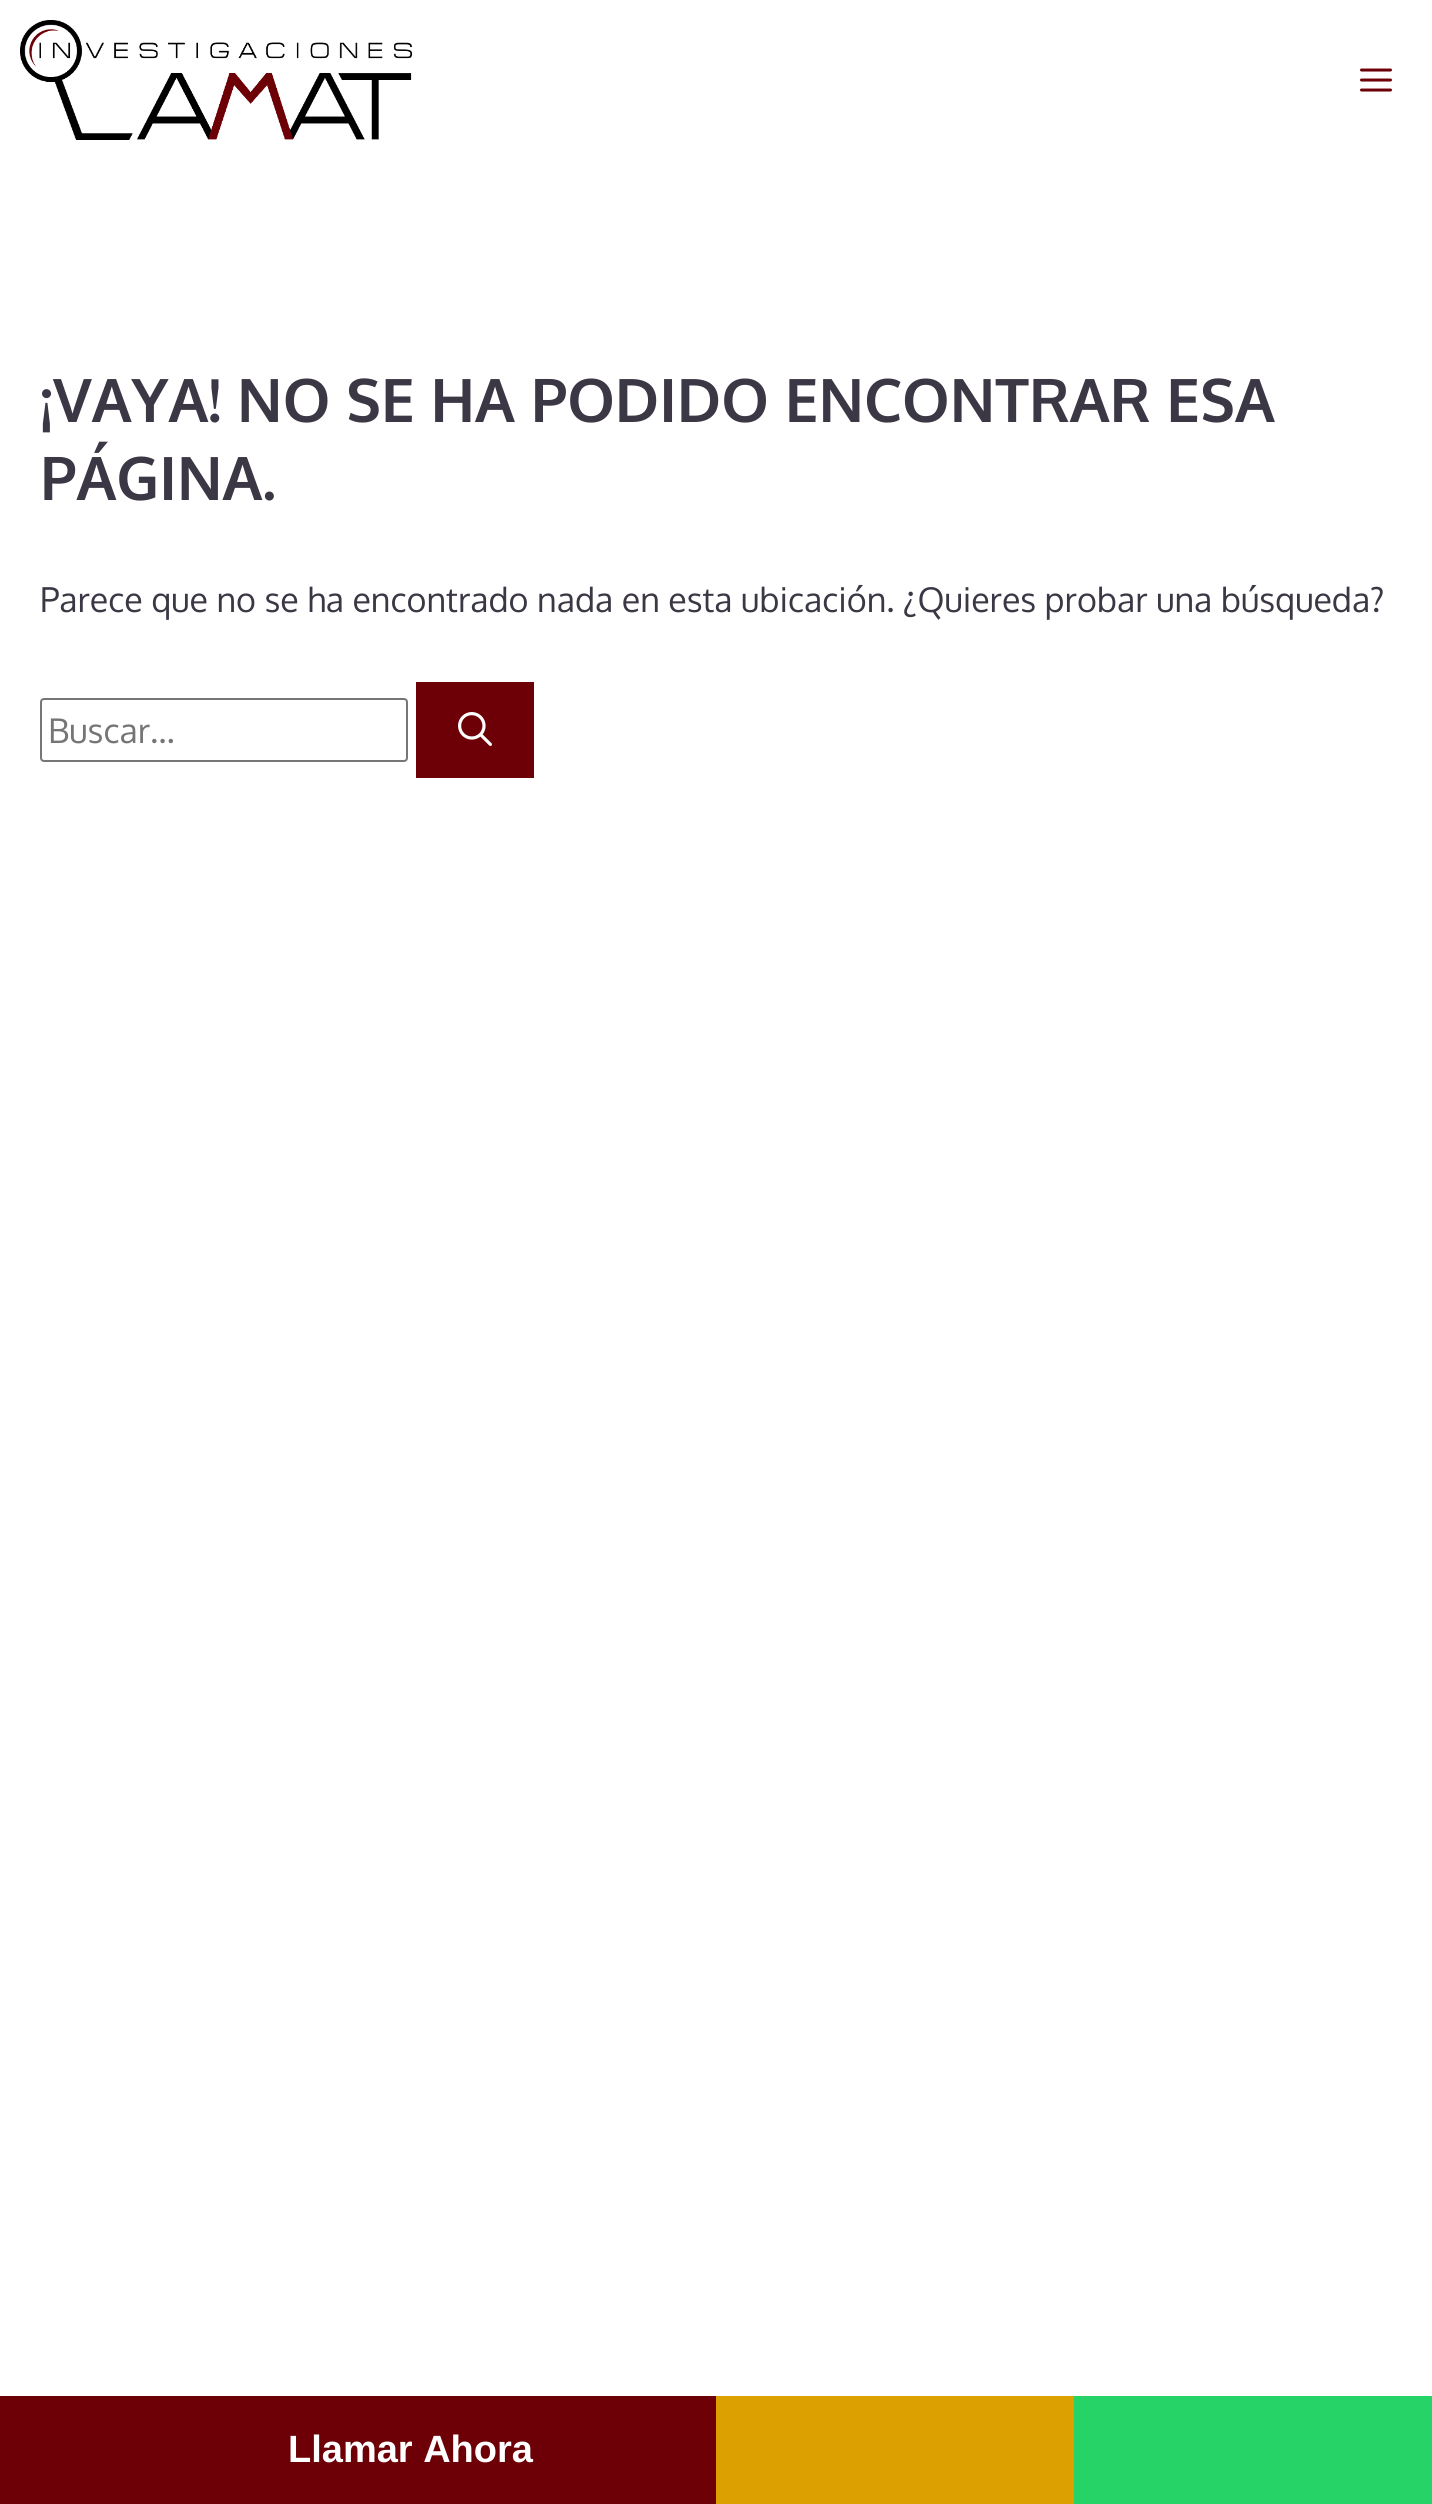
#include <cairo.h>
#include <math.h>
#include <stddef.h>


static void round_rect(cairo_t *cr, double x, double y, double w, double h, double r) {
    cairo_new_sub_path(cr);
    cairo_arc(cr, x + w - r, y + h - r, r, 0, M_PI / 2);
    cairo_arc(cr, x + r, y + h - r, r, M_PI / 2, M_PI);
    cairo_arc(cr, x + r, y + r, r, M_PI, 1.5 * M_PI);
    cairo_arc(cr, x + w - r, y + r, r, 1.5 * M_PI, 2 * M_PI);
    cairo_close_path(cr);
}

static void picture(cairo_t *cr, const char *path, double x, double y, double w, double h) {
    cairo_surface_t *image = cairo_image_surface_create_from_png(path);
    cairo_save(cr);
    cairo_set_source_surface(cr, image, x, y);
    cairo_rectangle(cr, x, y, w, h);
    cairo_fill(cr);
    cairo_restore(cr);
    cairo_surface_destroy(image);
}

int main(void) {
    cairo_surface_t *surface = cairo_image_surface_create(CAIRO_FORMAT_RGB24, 1432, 2504);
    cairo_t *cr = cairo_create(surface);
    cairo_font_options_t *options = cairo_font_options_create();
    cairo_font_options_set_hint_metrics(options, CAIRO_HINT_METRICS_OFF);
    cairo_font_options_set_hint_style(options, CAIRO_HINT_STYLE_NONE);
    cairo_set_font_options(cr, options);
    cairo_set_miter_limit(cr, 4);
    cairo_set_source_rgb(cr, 1, 1, 1);
    cairo_paint(cr);
    picture(cr, "img1.png", 20, 20, 392, 120);
    picture(cr, "img2.png", 1360, 68, 32, 24);
    cairo_select_font_face(cr, "Oxygen", CAIRO_FONT_SLANT_NORMAL, CAIRO_FONT_WEIGHT_BOLD);
    cairo_set_font_size(cr, 60);
    cairo_set_source_rgb(cr, 0.235, 0.216, 0.267);
    cairo_move_to(cr, 40, 422);
    cairo_show_text(cr, "¡VAYA! NO SE HA PODIDO ENCONTRAR ESA");
    cairo_move_to(cr, 40, 500);
    cairo_show_text(cr, "PÁGINA.");
    cairo_select_font_face(cr, "Oxygen", CAIRO_FONT_SLANT_NORMAL, CAIRO_FONT_WEIGHT_NORMAL);
    cairo_set_font_size(cr, 34);
    cairo_move_to(cr, 40, 612);
    cairo_show_text(cr, "Parece que no se ha encontrado nada en esta ubicación. ¿Quieres probar una búsqueda?");
    round_rect(cr, 41, 699, 366, 62, 3);
    cairo_set_source_rgb(cr, 0.463, 0.463, 0.463);
    cairo_stroke(cr);
    cairo_set_source_rgb(cr, 0.459, 0.459, 0.459);
    cairo_move_to(cr, 48, 743);
    cairo_show_text(cr, "Buscar...");
    cairo_set_source_rgb(cr, 0.427, 0, 0.024);
    cairo_rectangle(cr, 416, 682, 118, 96);
    cairo_fill(cr);
    picture(cr, "img3.png", 458, 712, 34, 34);
    cairo_rectangle(cr, 0, 2396, 716, 108);
    cairo_fill(cr);
    cairo_select_font_face(cr, "Liberation Sans", CAIRO_FONT_SLANT_NORMAL, CAIRO_FONT_WEIGHT_BOLD);
    cairo_set_font_size(cr, 38);
    cairo_set_source_rgb(cr, 1, 1, 1);
    cairo_move_to(cr, 288, 2462);
    cairo_show_text(cr, "Llamar Ahora");
    cairo_set_source_rgb(cr, 0.863, 0.631, 0);
    cairo_rectangle(cr, 716, 2396, 358, 108);
    cairo_fill(cr);
    cairo_set_source_rgb(cr, 0.145, 0.827, 0.4);
    cairo_rectangle(cr, 1074, 2396, 358, 108);
    cairo_fill(cr);
    cairo_surface_write_to_png(surface, "page.png");
    cairo_font_options_destroy(options);
    cairo_destroy(cr);
    cairo_surface_destroy(surface);
    return 0;
}
